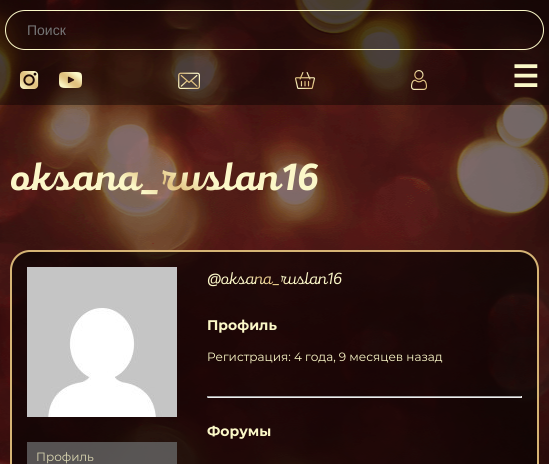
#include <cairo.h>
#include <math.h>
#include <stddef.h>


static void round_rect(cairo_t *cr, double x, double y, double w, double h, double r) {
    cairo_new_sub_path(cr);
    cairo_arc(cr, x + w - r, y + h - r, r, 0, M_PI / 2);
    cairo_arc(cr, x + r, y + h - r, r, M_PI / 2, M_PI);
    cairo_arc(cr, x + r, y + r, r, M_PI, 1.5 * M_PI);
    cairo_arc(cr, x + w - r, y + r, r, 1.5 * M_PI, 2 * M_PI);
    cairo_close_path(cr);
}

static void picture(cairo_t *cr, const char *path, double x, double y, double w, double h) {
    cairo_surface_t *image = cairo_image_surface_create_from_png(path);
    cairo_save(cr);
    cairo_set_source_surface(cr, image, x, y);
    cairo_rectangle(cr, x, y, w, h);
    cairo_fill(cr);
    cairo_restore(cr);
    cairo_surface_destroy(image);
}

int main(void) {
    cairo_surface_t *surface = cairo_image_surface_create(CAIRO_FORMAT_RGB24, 549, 464);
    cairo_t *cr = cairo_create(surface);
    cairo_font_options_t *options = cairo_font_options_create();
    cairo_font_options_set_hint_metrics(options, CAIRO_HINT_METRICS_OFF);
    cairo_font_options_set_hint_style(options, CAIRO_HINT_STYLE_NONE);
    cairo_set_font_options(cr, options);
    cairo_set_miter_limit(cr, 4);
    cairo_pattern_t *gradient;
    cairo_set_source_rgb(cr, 0.039, 0.008, 0.008);
    cairo_paint(cr);
    picture(cr, "img1.png", 0, 0, 549, 464);
    cairo_set_source_rgba(cr, 0, 0, 0, 0.4);
    cairo_rectangle(cr, 0, 0, 549, 105);
    cairo_fill(cr);
    round_rect(cr, 5.5, 10.5, 538, 39, 19.5);
    cairo_set_source_rgb(cr, 0.984, 0.969, 0.784);
    cairo_set_line_width(cr, 1);
    cairo_stroke(cr);
    cairo_select_font_face(cr, "Liberation Sans", CAIRO_FONT_SLANT_NORMAL, CAIRO_FONT_WEIGHT_NORMAL);
    cairo_set_font_size(cr, 14);
    cairo_set_source_rgb(cr, 0.459, 0.459, 0.459);
    cairo_move_to(cr, 27, 35);
    cairo_show_text(cr, "Поиск");
    picture(cr, "img2.png", 20, 71, 19, 18);
    picture(cr, "img3.png", 59, 72, 23, 16);
    picture(cr, "img4.png", 178, 72, 22, 17);
    picture(cr, "img5.png", 295, 72, 20, 17);
    picture(cr, "img6.png", 411, 70, 16, 20);
    cairo_select_font_face(cr, "DejaVu Sans", CAIRO_FONT_SLANT_NORMAL, CAIRO_FONT_WEIGHT_BOLD);
    cairo_set_font_size(cr, 30);
    cairo_set_source_rgb(cr, 0.984, 0.969, 0.784);
    cairo_move_to(cr, 512, 87);
    cairo_show_text(cr, "☰");
    cairo_select_font_face(cr, "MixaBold", CAIRO_FONT_SLANT_ITALIC, CAIRO_FONT_WEIGHT_BOLD);
    cairo_set_font_size(cr, 39);
    gradient = cairo_pattern_create_linear(113, 269, 215, 92);
    cairo_pattern_add_color_stop_rgba(gradient, 0.4, 0.984, 0.969, 0.784, 1);
    cairo_pattern_add_color_stop_rgba(gradient, 0.5, 0.886, 0.761, 0.506, 1);
    cairo_pattern_add_color_stop_rgba(gradient, 0.6, 0.984, 0.969, 0.784, 1);
    cairo_set_source(cr, gradient);
    cairo_pattern_destroy(gradient);
    cairo_move_to(cr, 10, 190);
    cairo_show_text(cr, "oksana_ruslan16");
    cairo_set_source_rgba(cr, 0, 0, 0, 0.6);
    round_rect(cr, 11, 251, 527, 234, 19);
    cairo_fill_preserve(cr);
    cairo_set_source_rgb(cr, 0.839, 0.706, 0.459);
    cairo_set_line_width(cr, 2);
    cairo_stroke(cr);
    cairo_select_font_face(cr, "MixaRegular", CAIRO_FONT_SLANT_ITALIC, CAIRO_FONT_WEIGHT_NORMAL);
    cairo_set_font_size(cr, 16.75);
    gradient = cairo_pattern_create_linear(250, 327, 299, 242);
    cairo_pattern_add_color_stop_rgba(gradient, 0.4, 0.984, 0.969, 0.784, 1);
    cairo_pattern_add_color_stop_rgba(gradient, 0.5, 0.886, 0.761, 0.506, 1);
    cairo_pattern_add_color_stop_rgba(gradient, 0.6, 0.984, 0.969, 0.784, 1);
    cairo_set_source(cr, gradient);
    cairo_pattern_destroy(gradient);
    cairo_move_to(cr, 207, 284);
    cairo_show_text(cr, "@oksana_ruslan16");
    cairo_select_font_face(cr, "Montserrat", CAIRO_FONT_SLANT_NORMAL, CAIRO_FONT_WEIGHT_BOLD);
    cairo_set_font_size(cr, 14);
    cairo_set_source_rgb(cr, 0.984, 0.969, 0.784);
    cairo_move_to(cr, 207, 330);
    cairo_show_text(cr, "Профиль");
    cairo_select_font_face(cr, "Montserrat", CAIRO_FONT_SLANT_NORMAL, CAIRO_FONT_WEIGHT_NORMAL);
    cairo_set_font_size(cr, 12);
    cairo_move_to(cr, 207, 361);
    cairo_show_text(cr, "Регистрация: 4 года, 9 месяцев назад");
    cairo_set_source_rgb(cr, 0.624, 0.624, 0.624);
    cairo_rectangle(cr, 207, 396, 315, 1);
    cairo_fill(cr);
    cairo_set_source_rgb(cr, 0.933, 0.933, 0.933);
    cairo_rectangle(cr, 521, 396, 1, 2);
    cairo_fill(cr);
    cairo_rectangle(cr, 207, 397, 315, 1);
    cairo_fill(cr);
    cairo_set_source_rgb(cr, 0.624, 0.624, 0.624);
    cairo_rectangle(cr, 207, 396, 1, 2);
    cairo_fill(cr);
    cairo_select_font_face(cr, "Montserrat", CAIRO_FONT_SLANT_NORMAL, CAIRO_FONT_WEIGHT_BOLD);
    cairo_set_font_size(cr, 14);
    cairo_set_source_rgb(cr, 0.984, 0.969, 0.784);
    cairo_move_to(cr, 207, 436);
    cairo_show_text(cr, "Форумы");
    picture(cr, "img7.png", 27, 267, 150, 150);
    cairo_set_source_rgba(cr, 0.4, 0.4, 0.4, 0.8);
    cairo_rectangle(cr, 27, 442, 150, 22);
    cairo_fill(cr);
    cairo_select_font_face(cr, "Montserrat", CAIRO_FONT_SLANT_NORMAL, CAIRO_FONT_WEIGHT_NORMAL);
    cairo_set_font_size(cr, 12);
    cairo_set_source_rgb(cr, 0.855, 0.839, 0.694);
    cairo_move_to(cr, 36, 461);
    cairo_show_text(cr, "Профиль");
    cairo_surface_write_to_png(surface, "page.png");
    cairo_font_options_destroy(options);
    cairo_destroy(cr);
    cairo_surface_destroy(surface);
    return 0;
}
